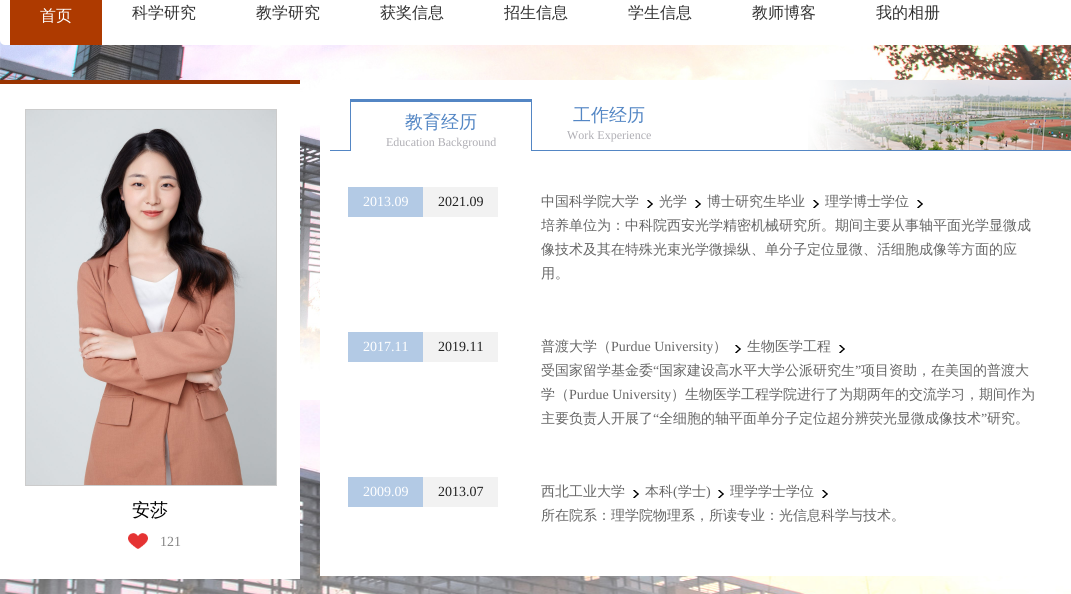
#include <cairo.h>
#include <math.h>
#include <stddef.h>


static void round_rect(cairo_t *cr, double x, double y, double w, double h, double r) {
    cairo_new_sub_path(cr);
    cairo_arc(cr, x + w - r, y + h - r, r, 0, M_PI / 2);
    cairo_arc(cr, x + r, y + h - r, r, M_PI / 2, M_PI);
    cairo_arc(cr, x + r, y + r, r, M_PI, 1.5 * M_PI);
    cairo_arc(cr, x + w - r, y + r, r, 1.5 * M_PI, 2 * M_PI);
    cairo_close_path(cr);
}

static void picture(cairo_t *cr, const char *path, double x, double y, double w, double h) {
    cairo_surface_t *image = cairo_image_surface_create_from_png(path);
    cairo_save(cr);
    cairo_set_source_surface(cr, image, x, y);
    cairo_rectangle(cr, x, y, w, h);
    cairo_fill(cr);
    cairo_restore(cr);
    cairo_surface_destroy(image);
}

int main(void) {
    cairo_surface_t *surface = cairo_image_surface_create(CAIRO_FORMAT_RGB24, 1071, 594);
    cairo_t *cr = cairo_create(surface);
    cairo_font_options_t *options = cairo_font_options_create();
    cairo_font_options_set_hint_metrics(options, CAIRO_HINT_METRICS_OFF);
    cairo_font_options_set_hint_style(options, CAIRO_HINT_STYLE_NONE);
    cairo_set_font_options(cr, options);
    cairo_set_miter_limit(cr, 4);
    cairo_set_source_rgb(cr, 1, 1, 1);
    cairo_paint(cr);
    picture(cr, "img1.png", 0, 400, 1071, 194);
    picture(cr, "img2.png", 0, 40, 1071, 360);
    cairo_set_source_rgb(cr, 1, 1, 1);
    round_rect(cr, 0, -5, 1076, 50, 5);
    cairo_fill(cr);
    cairo_set_source_rgb(cr, 0.682, 0.227, 0);
    cairo_rectangle(cr, 10, 0, 92, 45);
    cairo_fill(cr);
    cairo_select_font_face(cr, "WenQuanYi Zen Hei Medium", CAIRO_FONT_SLANT_NORMAL, CAIRO_FONT_WEIGHT_NORMAL);
    cairo_set_font_size(cr, 16);
    cairo_set_source_rgb(cr, 1, 1, 1);
    cairo_move_to(cr, 40, 21);
    cairo_show_text(cr, "首页");
    cairo_set_source_rgb(cr, 0.2, 0.2, 0.2);
    cairo_move_to(cr, 132, 18);
    cairo_show_text(cr, "科学研究");
    cairo_move_to(cr, 256, 18);
    cairo_show_text(cr, "教学研究");
    cairo_move_to(cr, 380, 18);
    cairo_show_text(cr, "获奖信息");
    cairo_move_to(cr, 504, 18);
    cairo_show_text(cr, "招生信息");
    cairo_move_to(cr, 628, 18);
    cairo_show_text(cr, "学生信息");
    cairo_move_to(cr, 752, 18);
    cairo_show_text(cr, "教师博客");
    cairo_move_to(cr, 876, 18);
    cairo_show_text(cr, "我的相册");
    cairo_set_source_rgb(cr, 1, 1, 1);
    cairo_rectangle(cr, 0, 84, 300, 495);
    cairo_fill(cr);
    cairo_set_source_rgb(cr, 0.6, 0.2, 0);
    cairo_rectangle(cr, 0, 80, 300, 4);
    cairo_fill(cr);
    cairo_rectangle(cr, 25.5, 109.5, 251, 376);
    cairo_set_source_rgb(cr, 0.8, 0.8, 0.8);
    cairo_set_line_width(cr, 1);
    cairo_stroke(cr);
    picture(cr, "img3.png", 26, 110, 250, 375);
    cairo_set_font_size(cr, 18);
    cairo_set_source_rgb(cr, 0.008, 0.008, 0.008);
    cairo_move_to(cr, 132, 516);
    cairo_show_text(cr, "安莎");
    picture(cr, "img4.png", 128, 533, 20, 16);
    cairo_select_font_face(cr, "Liberation Serif", CAIRO_FONT_SLANT_NORMAL, CAIRO_FONT_WEIGHT_NORMAL);
    cairo_set_font_size(cr, 14);
    cairo_set_source_rgb(cr, 0.522, 0.522, 0.522);
    cairo_move_to(cr, 160, 546);
    cairo_show_text(cr, "121");
    cairo_set_source_rgb(cr, 1, 1, 1);
    cairo_rectangle(cr, 320, 80, 751, 496);
    cairo_fill(cr);
    picture(cr, "img5.png", 808, 80, 263, 70);
    cairo_set_source_rgb(cr, 0.325, 0.525, 0.769);
    cairo_rectangle(cr, 330, 150, 741, 1);
    cairo_fill(cr);
    cairo_set_source_rgb(cr, 1, 1, 1);
    cairo_rectangle(cr, 351, 150, 180, 1);
    cairo_fill(cr);
    cairo_set_source_rgb(cr, 0.325, 0.525, 0.769);
    cairo_rectangle(cr, 350, 99, 182, 3);
    cairo_fill(cr);
    cairo_rectangle(cr, 531, 99, 1, 52);
    cairo_fill(cr);
    cairo_rectangle(cr, 350, 99, 1, 52);
    cairo_fill(cr);
    cairo_select_font_face(cr, "WenQuanYi Zen Hei Medium", CAIRO_FONT_SLANT_NORMAL, CAIRO_FONT_WEIGHT_NORMAL);
    cairo_set_font_size(cr, 18);
    cairo_move_to(cr, 405, 128);
    cairo_show_text(cr, "教育经历");
    cairo_select_font_face(cr, "Liberation Serif", CAIRO_FONT_SLANT_NORMAL, CAIRO_FONT_WEIGHT_NORMAL);
    cairo_set_font_size(cr, 12);
    cairo_set_source_rgb(cr, 0.686, 0.682, 0.706);
    cairo_move_to(cr, 386, 146);
    cairo_show_text(cr, "Education Background");
    cairo_select_font_face(cr, "WenQuanYi Zen Hei Medium", CAIRO_FONT_SLANT_NORMAL, CAIRO_FONT_WEIGHT_NORMAL);
    cairo_set_font_size(cr, 18);
    cairo_set_source_rgb(cr, 0.325, 0.525, 0.769);
    cairo_move_to(cr, 573, 121);
    cairo_show_text(cr, "工作经历");
    cairo_select_font_face(cr, "Liberation Serif", CAIRO_FONT_SLANT_NORMAL, CAIRO_FONT_WEIGHT_NORMAL);
    cairo_set_font_size(cr, 12);
    cairo_set_source_rgb(cr, 0.686, 0.682, 0.706);
    cairo_move_to(cr, 567, 139);
    cairo_show_text(cr, "Work Experience");
    cairo_set_source_rgb(cr, 0.702, 0.792, 0.898);
    cairo_rectangle(cr, 348, 187, 75, 30);
    cairo_fill(cr);
    cairo_set_font_size(cr, 14);
    cairo_set_source_rgb(cr, 1, 1, 1);
    cairo_move_to(cr, 363, 206);
    cairo_show_text(cr, "2013.09");
    cairo_set_source_rgb(cr, 0.949, 0.949, 0.949);
    cairo_rectangle(cr, 423, 187, 75, 30);
    cairo_fill(cr);
    cairo_set_source_rgb(cr, 0.133, 0.133, 0.133);
    cairo_move_to(cr, 438, 206);
    cairo_show_text(cr, "2021.09");
    picture(cr, "img6.png", 647, 200, 6, 8);
    cairo_select_font_face(cr, "WenQuanYi Zen Hei Medium", CAIRO_FONT_SLANT_NORMAL, CAIRO_FONT_WEIGHT_NORMAL);
    cairo_set_source_rgb(cr, 0.4, 0.4, 0.4);
    cairo_move_to(cr, 541, 206);
    cairo_show_text(cr, "中国科学院大学");
    picture(cr, "img6.png", 695, 200, 6, 8);
    cairo_move_to(cr, 659, 206);
    cairo_show_text(cr, "光学");
    picture(cr, "img6.png", 813, 200, 6, 8);
    cairo_move_to(cr, 707, 206);
    cairo_show_text(cr, "博士研究生毕业");
    picture(cr, "img6.png", 917, 200, 6, 8);
    cairo_move_to(cr, 825, 206);
    cairo_show_text(cr, "理学博士学位");
    cairo_move_to(cr, 541, 230);
    cairo_show_text(cr, "培养单位为：中科院西安光学精密机械研究所。期间主要从事轴平面光学显微成");
    cairo_move_to(cr, 541, 254);
    cairo_show_text(cr, "像技术及其在特殊光束光学微操纵、单分子定位显微、活细胞成像等方面的应");
    cairo_move_to(cr, 541, 278);
    cairo_show_text(cr, "用。");
    cairo_set_source_rgb(cr, 0.702, 0.792, 0.898);
    cairo_rectangle(cr, 348, 332, 75, 30);
    cairo_fill(cr);
    cairo_select_font_face(cr, "Liberation Serif", CAIRO_FONT_SLANT_NORMAL, CAIRO_FONT_WEIGHT_NORMAL);
    cairo_set_source_rgb(cr, 1, 1, 1);
    cairo_move_to(cr, 363, 351);
    cairo_show_text(cr, "2017.11");
    cairo_set_source_rgb(cr, 0.949, 0.949, 0.949);
    cairo_rectangle(cr, 423, 332, 75, 30);
    cairo_fill(cr);
    cairo_set_source_rgb(cr, 0.133, 0.133, 0.133);
    cairo_move_to(cr, 438, 351);
    cairo_show_text(cr, "2019.11");
    picture(cr, "img6.png", 735, 345, 6, 8);
    cairo_select_font_face(cr, "WenQuanYi Zen Hei Medium", CAIRO_FONT_SLANT_NORMAL, CAIRO_FONT_WEIGHT_NORMAL);
    cairo_set_source_rgb(cr, 0.4, 0.4, 0.4);
    cairo_move_to(cr, 541, 351);
    cairo_show_text(cr, "普渡大学（");
    cairo_select_font_face(cr, "Liberation Serif", CAIRO_FONT_SLANT_NORMAL, CAIRO_FONT_WEIGHT_NORMAL);
    cairo_move_to(cr, 611, 351);
    cairo_show_text(cr, "Purdue University");
    cairo_select_font_face(cr, "WenQuanYi Zen Hei Medium", CAIRO_FONT_SLANT_NORMAL, CAIRO_FONT_WEIGHT_NORMAL);
    cairo_move_to(cr, 713, 351);
    cairo_show_text(cr, "）");
    picture(cr, "img6.png", 839, 345, 6, 8);
    cairo_move_to(cr, 747, 351);
    cairo_show_text(cr, "生物医学工程");
    cairo_move_to(cr, 541, 375);
    cairo_show_text(cr, "受国家留学基金委");
    cairo_select_font_face(cr, "Liberation Serif", CAIRO_FONT_SLANT_NORMAL, CAIRO_FONT_WEIGHT_NORMAL);
    cairo_move_to(cr, 653, 375);
    cairo_show_text(cr, "“");
    cairo_select_font_face(cr, "WenQuanYi Zen Hei Medium", CAIRO_FONT_SLANT_NORMAL, CAIRO_FONT_WEIGHT_NORMAL);
    cairo_move_to(cr, 659, 375);
    cairo_show_text(cr, "国家建设高水平大学公派研究生");
    cairo_select_font_face(cr, "Liberation Serif", CAIRO_FONT_SLANT_NORMAL, CAIRO_FONT_WEIGHT_NORMAL);
    cairo_move_to(cr, 855, 375);
    cairo_show_text(cr, "”");
    cairo_select_font_face(cr, "WenQuanYi Zen Hei Medium", CAIRO_FONT_SLANT_NORMAL, CAIRO_FONT_WEIGHT_NORMAL);
    cairo_move_to(cr, 861, 375);
    cairo_show_text(cr, "项目资助，在美国的普渡大");
    cairo_move_to(cr, 541, 399);
    cairo_show_text(cr, "学（");
    cairo_select_font_face(cr, "Liberation Serif", CAIRO_FONT_SLANT_NORMAL, CAIRO_FONT_WEIGHT_NORMAL);
    cairo_move_to(cr, 569, 399);
    cairo_show_text(cr, "Purdue University");
    cairo_select_font_face(cr, "WenQuanYi Zen Hei Medium", CAIRO_FONT_SLANT_NORMAL, CAIRO_FONT_WEIGHT_NORMAL);
    cairo_move_to(cr, 671, 399);
    cairo_show_text(cr, "）生物医学工程学院进行了为期两年的交流学习，期间作为");
    cairo_move_to(cr, 541, 423);
    cairo_show_text(cr, "主要负责人开展了");
    cairo_select_font_face(cr, "Liberation Serif", CAIRO_FONT_SLANT_NORMAL, CAIRO_FONT_WEIGHT_NORMAL);
    cairo_move_to(cr, 653, 423);
    cairo_show_text(cr, "“");
    cairo_select_font_face(cr, "WenQuanYi Zen Hei Medium", CAIRO_FONT_SLANT_NORMAL, CAIRO_FONT_WEIGHT_NORMAL);
    cairo_move_to(cr, 659, 423);
    cairo_show_text(cr, "全细胞的轴平面单分子定位超分辨荧光显微成像技术");
    cairo_select_font_face(cr, "Liberation Serif", CAIRO_FONT_SLANT_NORMAL, CAIRO_FONT_WEIGHT_NORMAL);
    cairo_move_to(cr, 981, 423);
    cairo_show_text(cr, "”");
    cairo_select_font_face(cr, "WenQuanYi Zen Hei Medium", CAIRO_FONT_SLANT_NORMAL, CAIRO_FONT_WEIGHT_NORMAL);
    cairo_move_to(cr, 987, 423);
    cairo_show_text(cr, "研究。");
    cairo_set_source_rgb(cr, 0.702, 0.792, 0.898);
    cairo_rectangle(cr, 348, 477, 75, 30);
    cairo_fill(cr);
    cairo_select_font_face(cr, "Liberation Serif", CAIRO_FONT_SLANT_NORMAL, CAIRO_FONT_WEIGHT_NORMAL);
    cairo_set_source_rgb(cr, 1, 1, 1);
    cairo_move_to(cr, 363, 496);
    cairo_show_text(cr, "2009.09");
    cairo_set_source_rgb(cr, 0.949, 0.949, 0.949);
    cairo_rectangle(cr, 423, 477, 75, 30);
    cairo_fill(cr);
    cairo_set_source_rgb(cr, 0.133, 0.133, 0.133);
    cairo_move_to(cr, 438, 496);
    cairo_show_text(cr, "2013.07");
    picture(cr, "img6.png", 633, 490, 6, 8);
    cairo_select_font_face(cr, "WenQuanYi Zen Hei Medium", CAIRO_FONT_SLANT_NORMAL, CAIRO_FONT_WEIGHT_NORMAL);
    cairo_set_source_rgb(cr, 0.4, 0.4, 0.4);
    cairo_move_to(cr, 541, 496);
    cairo_show_text(cr, "西北工业大学");
    picture(cr, "img6.png", 718, 490, 6, 8);
    cairo_move_to(cr, 645, 496);
    cairo_show_text(cr, "本科");
    cairo_select_font_face(cr, "Liberation Serif", CAIRO_FONT_SLANT_NORMAL, CAIRO_FONT_WEIGHT_NORMAL);
    cairo_move_to(cr, 673, 496);
    cairo_show_text(cr, "(");
    cairo_select_font_face(cr, "WenQuanYi Zen Hei Medium", CAIRO_FONT_SLANT_NORMAL, CAIRO_FONT_WEIGHT_NORMAL);
    cairo_move_to(cr, 678, 496);
    cairo_show_text(cr, "学士");
    cairo_select_font_face(cr, "Liberation Serif", CAIRO_FONT_SLANT_NORMAL, CAIRO_FONT_WEIGHT_NORMAL);
    cairo_move_to(cr, 706, 496);
    cairo_show_text(cr, ")");
    picture(cr, "img6.png", 822, 490, 6, 8);
    cairo_select_font_face(cr, "WenQuanYi Zen Hei Medium", CAIRO_FONT_SLANT_NORMAL, CAIRO_FONT_WEIGHT_NORMAL);
    cairo_move_to(cr, 730, 496);
    cairo_show_text(cr, "理学学士学位");
    cairo_move_to(cr, 541, 520);
    cairo_show_text(cr, "所在院系：理学院物理系，所读专业：光信息科学与技术。");
    cairo_surface_write_to_png(surface, "page.png");
    cairo_font_options_destroy(options);
    cairo_destroy(cr);
    cairo_surface_destroy(surface);
    return 0;
}
